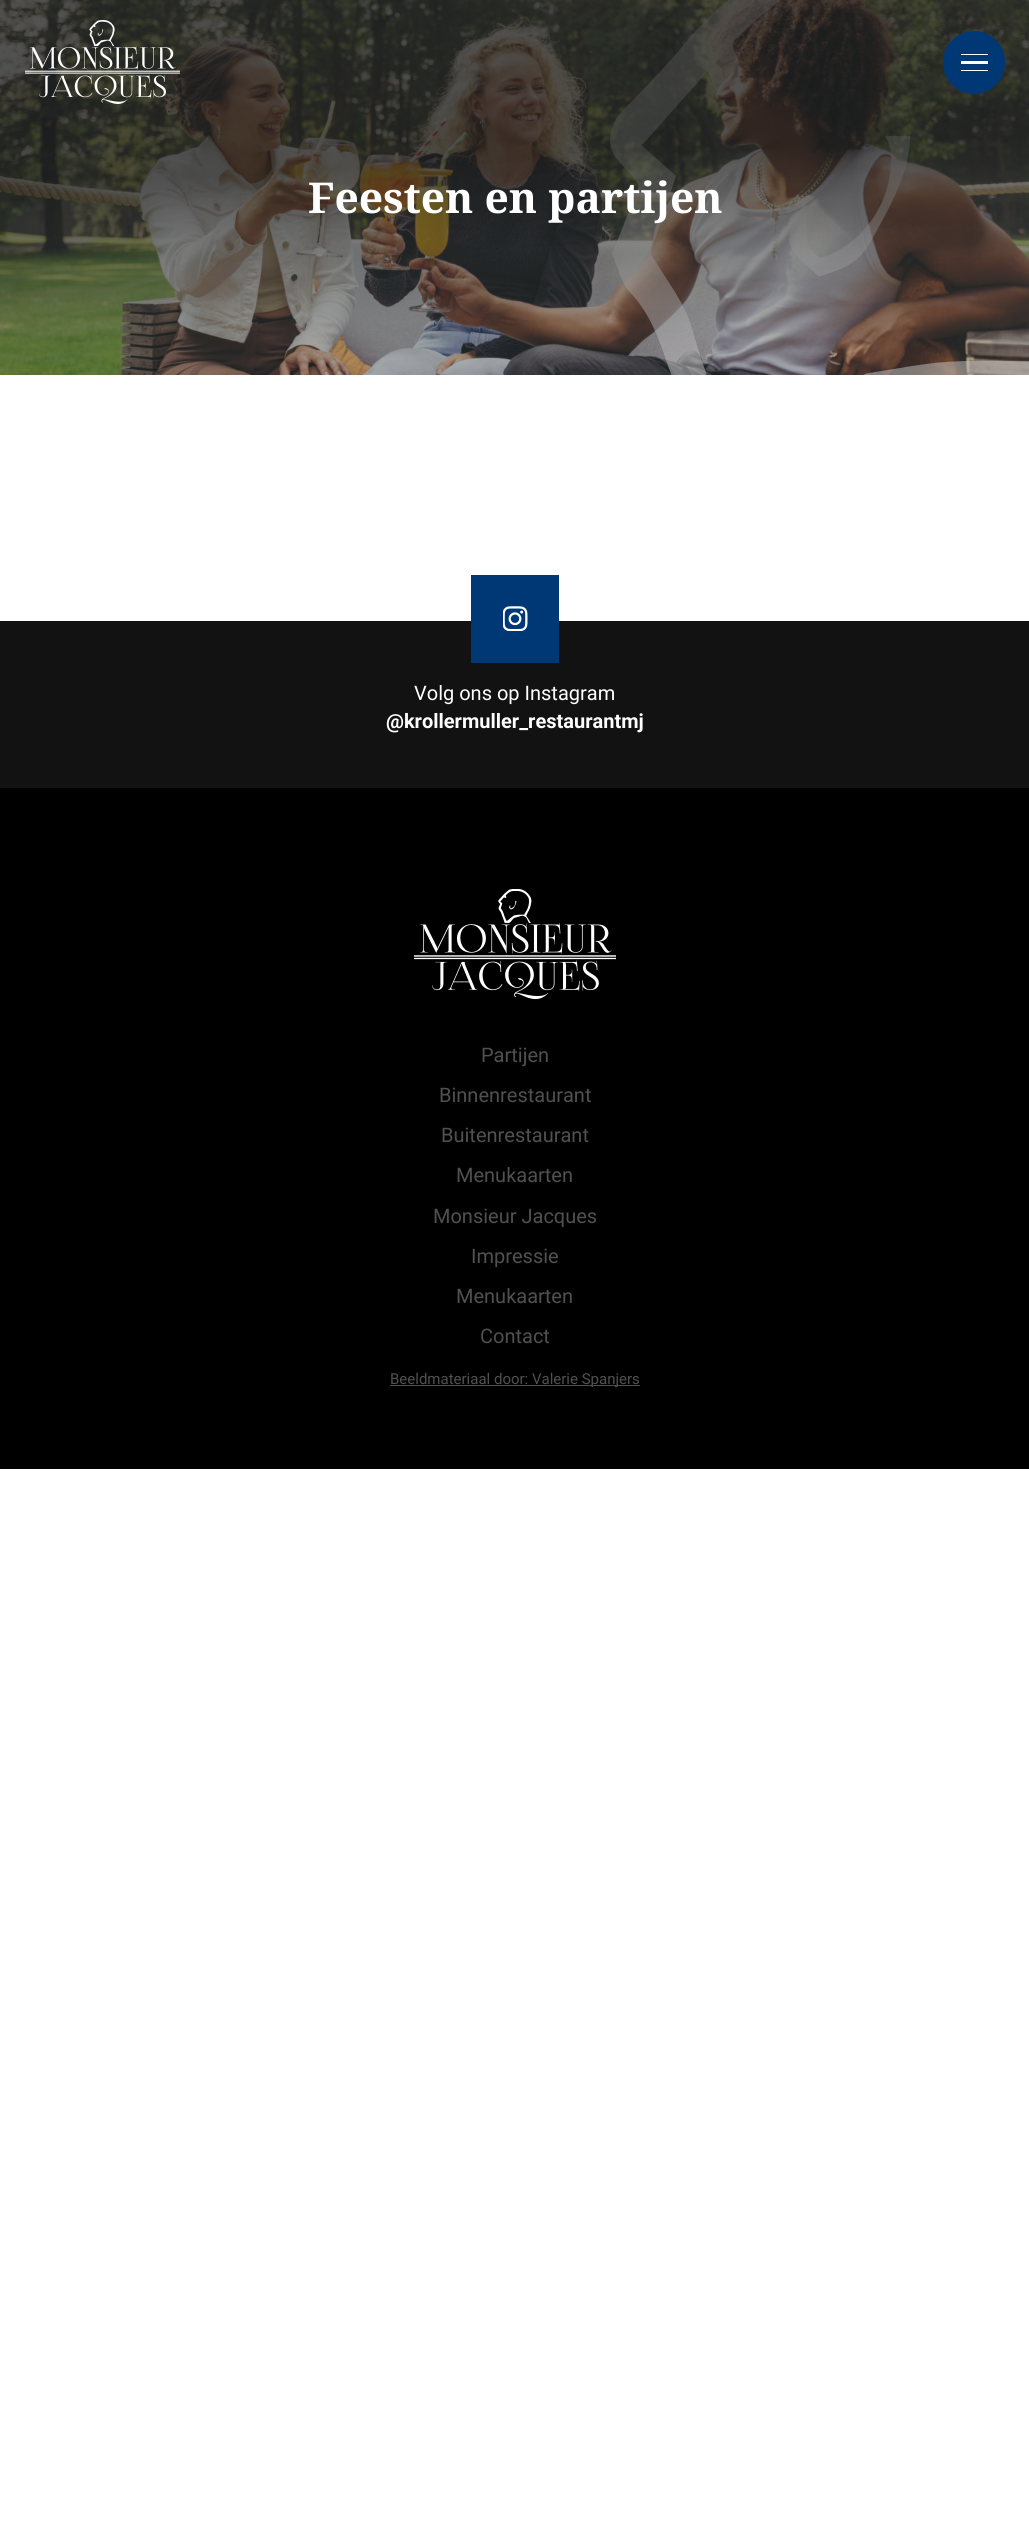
#include <cairo.h>
#include <math.h>
#include <stddef.h>


static void round_rect(cairo_t *cr, double x, double y, double w, double h, double r) {
    cairo_new_sub_path(cr);
    cairo_arc(cr, x + w - r, y + h - r, r, 0, M_PI / 2);
    cairo_arc(cr, x + r, y + h - r, r, M_PI / 2, M_PI);
    cairo_arc(cr, x + r, y + r, r, M_PI, 1.5 * M_PI);
    cairo_arc(cr, x + w - r, y + r, r, 1.5 * M_PI, 2 * M_PI);
    cairo_close_path(cr);
}

static void picture(cairo_t *cr, const char *path, double x, double y, double w, double h) {
    cairo_surface_t *image = cairo_image_surface_create_from_png(path);
    cairo_save(cr);
    cairo_set_source_surface(cr, image, x, y);
    cairo_rectangle(cr, x, y, w, h);
    cairo_fill(cr);
    cairo_restore(cr);
    cairo_surface_destroy(image);
}

int main(void) {
    cairo_surface_t *surface = cairo_image_surface_create(CAIRO_FORMAT_RGB24, 1029, 2548);
    cairo_t *cr = cairo_create(surface);
    cairo_font_options_t *options = cairo_font_options_create();
    cairo_font_options_set_hint_metrics(options, CAIRO_HINT_METRICS_OFF);
    cairo_font_options_set_hint_style(options, CAIRO_HINT_STYLE_NONE);
    cairo_set_font_options(cr, options);
    cairo_set_miter_limit(cr, 4);
    cairo_pattern_t *gradient;
    cairo_set_source_rgb(cr, 1, 1, 1);
    cairo_paint(cr);
    picture(cr, "img2.png", 0, 0, 1029, 375);
    picture(cr, "img3.png", 610, 0, 419, 375);
    gradient = cairo_pattern_create_linear(504, -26, 526, 401);
    cairo_pattern_add_color_stop_rgba(gradient, 0.44, 0.133, 0.133, 0.133, 0.78);
    cairo_pattern_add_color_stop_rgba(gradient, 1, 0.314, 0.314, 0.314, 0.29);
    cairo_set_source(cr, gradient);
    cairo_pattern_destroy(gradient);
    cairo_rectangle(cr, 0, 0, 1029, 375);
    cairo_fill(cr);
    picture(cr, "img1.png", 25, 20, 155, 84);
    cairo_set_source_rgb(cr, 0, 0.22, 0.463);
    round_rect(cr, 943, 31, 62, 63, 31);
    cairo_fill(cr);
    cairo_set_source_rgb(cr, 1, 1, 1);
    cairo_rectangle(cr, 961, 54, 27, 1);
    cairo_fill(cr);
    cairo_rectangle(cr, 961, 61, 27, 3);
    cairo_fill(cr);
    cairo_rectangle(cr, 961, 70, 27, 1);
    cairo_fill(cr);
    cairo_select_font_face(cr, "Noto Serif", CAIRO_FONT_SLANT_NORMAL, CAIRO_FONT_WEIGHT_BOLD);
    cairo_set_font_size(cr, 42.5);
    cairo_move_to(cr, 308, 213);
    cairo_show_text(cr, "Feesten en partijen");
    cairo_set_source_rgb(cr, 0.071, 0.071, 0.071);
    cairo_rectangle(cr, 0, 621, 1029, 167);
    cairo_fill(cr);
    cairo_set_source_rgb(cr, 0, 0.22, 0.463);
    cairo_rectangle(cr, 471, 575, 88, 88);
    cairo_fill(cr);
    picture(cr, "img4.png", 503, 606, 25, 25);
    cairo_select_font_face(cr, "Roboto", CAIRO_FONT_SLANT_NORMAL, CAIRO_FONT_WEIGHT_NORMAL);
    cairo_set_font_size(cr, 20);
    cairo_set_source_rgb(cr, 1, 1, 1);
    cairo_move_to(cr, 414, 700);
    cairo_show_text(cr, "Volg ons op Instagram");
    cairo_select_font_face(cr, "Roboto", CAIRO_FONT_SLANT_NORMAL, CAIRO_FONT_WEIGHT_BOLD);
    cairo_move_to(cr, 386, 728);
    cairo_show_text(cr, "@krollermuller_restaurantmj");
    cairo_set_source_rgb(cr, 0, 0, 0);
    cairo_rectangle(cr, 0, 788, 1029, 681);
    cairo_fill(cr);
    picture(cr, "img5.png", 414, 889, 202, 111);
    cairo_select_font_face(cr, "Roboto", CAIRO_FONT_SLANT_NORMAL, CAIRO_FONT_WEIGHT_NORMAL);
    cairo_set_source_rgb(cr, 0.314, 0.314, 0.314);
    cairo_move_to(cr, 481, 1062);
    cairo_show_text(cr, "Partijen");
    cairo_move_to(cr, 439, 1102);
    cairo_show_text(cr, "Binnenrestaurant");
    cairo_move_to(cr, 441, 1142);
    cairo_show_text(cr, "Buitenrestaurant");
    cairo_move_to(cr, 456, 1182);
    cairo_show_text(cr, "Menukaarten");
    cairo_move_to(cr, 433, 1223);
    cairo_show_text(cr, "Monsieur Jacques");
    cairo_move_to(cr, 471, 1263);
    cairo_show_text(cr, "Impressie");
    cairo_move_to(cr, 456, 1303);
    cairo_show_text(cr, "Menukaarten");
    cairo_move_to(cr, 480, 1343);
    cairo_show_text(cr, "Contact");
    cairo_rectangle(cr, 390, 1385, 250, 1);
    cairo_fill(cr);
    cairo_set_font_size(cr, 15);
    cairo_move_to(cr, 390, 1384);
    cairo_show_text(cr, "Beeldmateriaal door: Valerie Spanjers");
    cairo_surface_write_to_png(surface, "page.png");
    cairo_font_options_destroy(options);
    cairo_destroy(cr);
    cairo_surface_destroy(surface);
    return 0;
}
